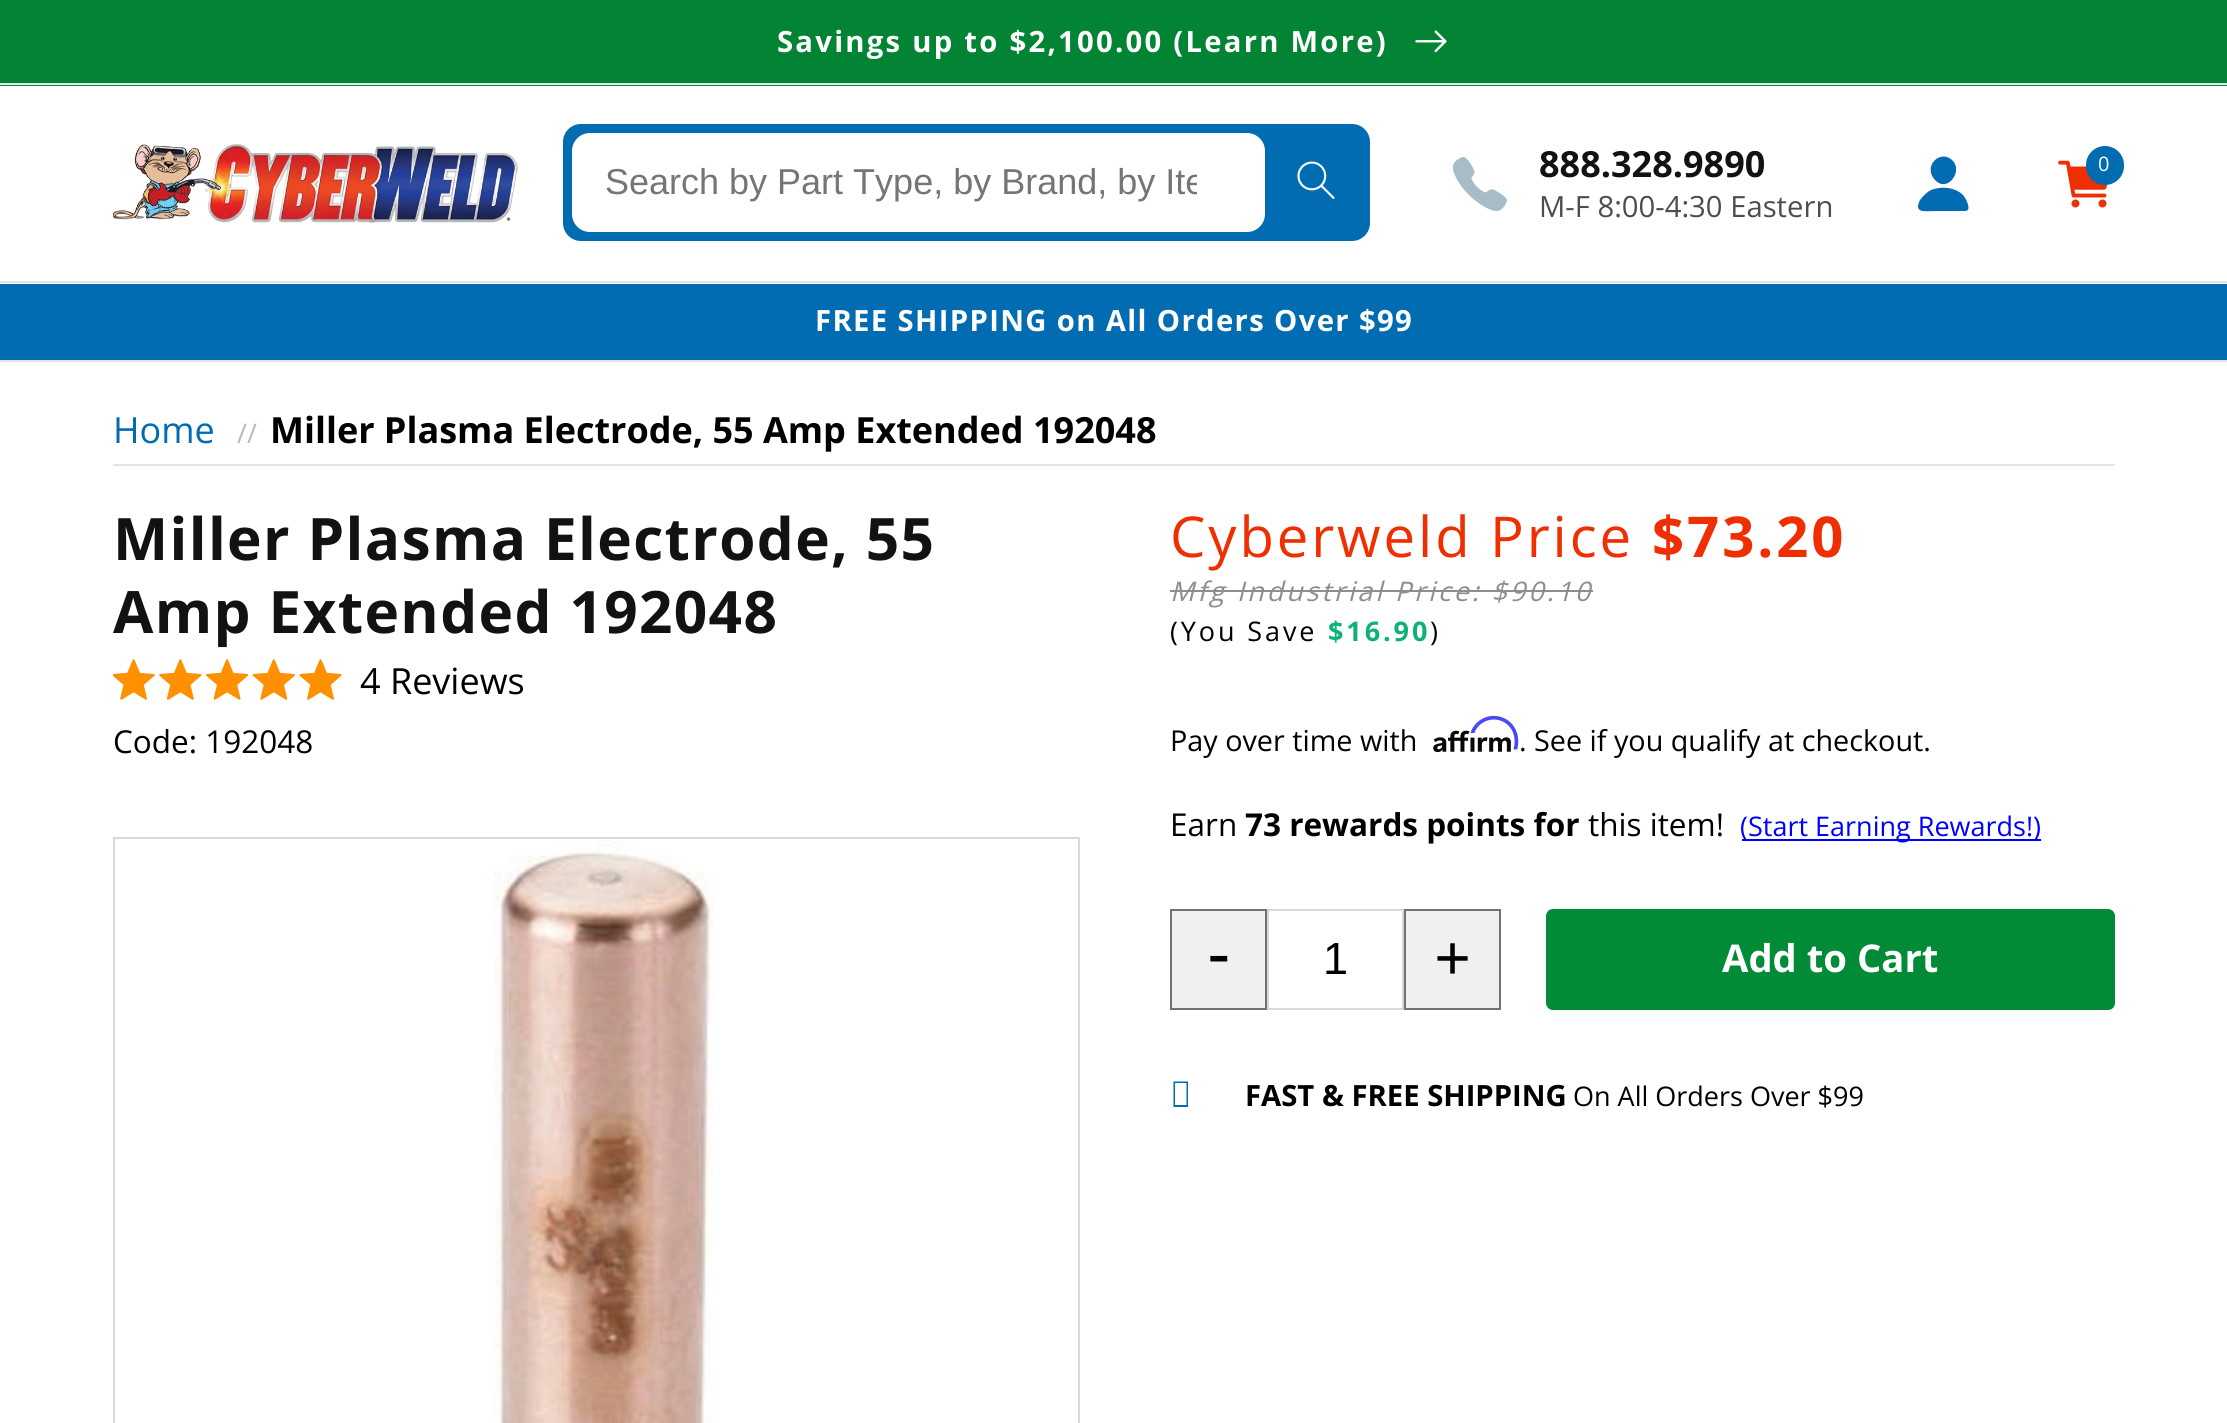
#include <cairo.h>
#include <math.h>
#include <stddef.h>


static void spaced_text(cairo_t *cr, double x, double y, const char *s, double letter, double word) {
    cairo_move_to(cr, x, y);
    while (*s) {
        char ch[5] = {0};
        int n = 0;
        do ch[n++] = *s++; while ((*s & 0xC0) == 0x80);
        cairo_show_text(cr, ch);
        cairo_rel_move_to(cr, letter + word * (*ch == ' '), 0);
    }
}

static void round_rect(cairo_t *cr, double x, double y, double w, double h, double r) {
    cairo_new_sub_path(cr);
    cairo_arc(cr, x + w - r, y + h - r, r, 0, M_PI / 2);
    cairo_arc(cr, x + r, y + h - r, r, M_PI / 2, M_PI);
    cairo_arc(cr, x + r, y + r, r, M_PI, 1.5 * M_PI);
    cairo_arc(cr, x + w - r, y + r, r, 1.5 * M_PI, 2 * M_PI);
    cairo_close_path(cr);
}

static void picture(cairo_t *cr, const char *path, double x, double y, double w, double h) {
    cairo_surface_t *image = cairo_image_surface_create_from_png(path);
    cairo_save(cr);
    cairo_set_source_surface(cr, image, x, y);
    cairo_rectangle(cr, x, y, w, h);
    cairo_fill(cr);
    cairo_restore(cr);
    cairo_surface_destroy(image);
}

int main(void) {
    cairo_surface_t *surface = cairo_image_surface_create(CAIRO_FORMAT_RGB24, 2227, 1423);
    cairo_t *cr = cairo_create(surface);
    cairo_font_options_t *options = cairo_font_options_create();
    cairo_font_options_set_hint_metrics(options, CAIRO_HINT_METRICS_OFF);
    cairo_font_options_set_hint_style(options, CAIRO_HINT_STYLE_NONE);
    cairo_set_font_options(cr, options);
    cairo_set_miter_limit(cr, 4);
    cairo_set_source_rgb(cr, 1, 1, 1);
    cairo_paint(cr);
    cairo_set_source_rgb(cr, 0.008, 0.545, 0.212);
    cairo_rectangle(cr, 0, 85, 2227, 1);
    cairo_fill(cr);
    cairo_set_source_rgb(cr, 0.898, 0.898, 0.898);
    cairo_rectangle(cr, 0, 83, 2227, 2);
    cairo_fill(cr);
    cairo_set_source_rgb(cr, 0.012, 0.518, 0.204);
    cairo_rectangle(cr, 0, 0, 2227, 83);
    cairo_fill(cr);
    cairo_select_font_face(cr, "Open Sans", CAIRO_FONT_SLANT_NORMAL, CAIRO_FONT_WEIGHT_BOLD);
    cairo_set_font_size(cr, 29.25);
    cairo_set_source_rgb(cr, 1, 1, 1);
    spaced_text(cr, 777, 52, "Savings up to $2,100.00 (Learn More)", 2.25, 0);
    picture(cr, "img1.png", 1415, 30, 32, 23);
    cairo_set_source_rgb(cr, 0.898, 0.898, 0.898);
    cairo_rectangle(cr, 0, 281, 2227, 2);
    cairo_fill(cr);
    picture(cr, "img2.png", 113, 144, 405, 79);
    cairo_set_source_rgb(cr, 0.004, 0.424, 0.694);
    round_rect(cr, 563, 124, 807, 117, 18);
    cairo_fill(cr);
    cairo_set_source_rgb(cr, 1, 1, 1);
    round_rect(cr, 572, 133, 693, 99, 18);
    cairo_fill(cr);
    cairo_save(cr);
    cairo_rectangle(cr, 605, 162, 592, 41);
    cairo_clip(cr);
    cairo_select_font_face(cr, "Liberation Sans", CAIRO_FONT_SLANT_NORMAL, CAIRO_FONT_WEIGHT_NORMAL);
    cairo_set_font_size(cr, 36);
    cairo_set_source_rgb(cr, 0.459, 0.459, 0.459);
    cairo_move_to(cr, 605, 194);
    cairo_show_text(cr, "Search by Part Type, by Brand, by Ite");
    cairo_restore(cr);
    picture(cr, "img3.png", 1297, 161, 38, 38);
    picture(cr, "img4.png", 1452, 156, 55, 55);
    cairo_set_font_size(cr, 36);
    cairo_set_source_rgb(cr, 0.071, 0.071, 0.071);
    cairo_move_to(cr, 1539, 177);
    cairo_show_text(cr, "888.328.9890");
    cairo_select_font_face(cr, "Open Sans", CAIRO_FONT_SLANT_NORMAL, CAIRO_FONT_WEIGHT_NORMAL);
    cairo_set_font_size(cr, 29.25);
    cairo_set_source_rgb(cr, 0.302, 0.302, 0.302);
    cairo_move_to(cr, 1539, 217);
    cairo_show_text(cr, "M-F 8:00-4:30 Eastern");
    cairo_set_source_rgb(cr, 0.004, 0.424, 0.694);
    cairo_new_path(cr);
    cairo_move_to(cr, 1953, 161);
    cairo_curve_to(cr, 1941, 148, 1922, 166, 1935, 180);
    cairo_curve_to(cr, 1947, 193, 1963, 172, 1953, 161);
    cairo_close_path(cr);
    cairo_move_to(cr, 1965, 211);
    cairo_line_to(cr, 1936, 211);
    cairo_curve_to(cr, 1926, 211, 1913, 214, 1920, 200);
    cairo_curve_to(cr, 1923, 196, 1927, 192, 1931, 190);
    cairo_curve_to(cr, 1941, 186, 1955, 187, 1963, 195);
    cairo_curve_to(cr, 1965, 197, 1973, 211, 1965, 211);
    cairo_close_path(cr);
    cairo_fill(cr);
    picture(cr, "img5.png", 2058, 160, 50, 48);
    round_rect(cr, 2086, 146, 38, 39, 19);
    cairo_fill(cr);
    cairo_set_font_size(cr, 20);
    cairo_set_source_rgb(cr, 1, 1, 1);
    cairo_move_to(cr, 2098, 171);
    cairo_show_text(cr, "0");
    cairo_set_source_rgb(cr, 0.004, 0.424, 0.694);
    cairo_rectangle(cr, 0, 284, 2227, 76);
    cairo_fill(cr);
    cairo_set_source_rgb(cr, 0.898, 0.898, 0.898);
    cairo_rectangle(cr, 0, 360, 2227, 2);
    cairo_fill(cr);
    cairo_select_font_face(cr, "Open Sans", CAIRO_FONT_SLANT_NORMAL, CAIRO_FONT_WEIGHT_BOLD);
    cairo_set_font_size(cr, 29.25);
    cairo_set_source_rgb(cr, 1, 1, 1);
    spaced_text(cr, 815, 331, "FREE SHIPPING on All Orders Over $99", 1.35, 0);
    cairo_set_source_rgb(cr, 0.898, 0.898, 0.898);
    cairo_rectangle(cr, 113, 464, 2002, 2);
    cairo_fill(cr);
    cairo_select_font_face(cr, "Open Sans", CAIRO_FONT_SLANT_NORMAL, CAIRO_FONT_WEIGHT_NORMAL);
    cairo_set_font_size(cr, 36);
    cairo_set_source_rgb(cr, 0.004, 0.424, 0.694);
    cairo_move_to(cr, 113, 443);
    cairo_show_text(cr, "Home");
    cairo_set_font_size(cr, 27);
    cairo_set_source_rgb(cr, 0.722, 0.722, 0.722);
    cairo_move_to(cr, 237, 443);
    cairo_show_text(cr, "//");
    cairo_select_font_face(cr, "Open Sans", CAIRO_FONT_SLANT_NORMAL, CAIRO_FONT_WEIGHT_BOLD);
    cairo_set_font_size(cr, 36);
    cairo_set_source_rgb(cr, 0, 0, 0);
    cairo_move_to(cr, 270, 443);
    cairo_show_text(cr, "Miller Plasma Electrode, 55 Amp Extended 192048");
    cairo_set_font_size(cr, 58.5);
    cairo_set_source_rgb(cr, 0.071, 0.071, 0.071);
    spaced_text(cr, 113, 560, "Miller Plasma Electrode, 55", 1.35, 0);
    spaced_text(cr, 113, 633, "Amp Extended 192048", 1.35, 0);
    picture(cr, "img6.png", 112, 659, 230, 41);
    picture(cr, "img7.png", 113, 659, 229, 41);
    cairo_select_font_face(cr, "Open Sans", CAIRO_FONT_SLANT_NORMAL, CAIRO_FONT_WEIGHT_NORMAL);
    cairo_set_font_size(cr, 36);
    cairo_set_source_rgb(cr, 0, 0, 0);
    cairo_move_to(cr, 360, 694);
    cairo_show_text(cr, "4 Reviews");
    cairo_set_font_size(cr, 31.5);
    cairo_move_to(cr, 113, 753);
    cairo_show_text(cr, "Code: 192048");
    cairo_rectangle(cr, 114, 838, 965, 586);
    cairo_set_source_rgb(cr, 0.847, 0.847, 0.847);
    cairo_stroke(cr);
    picture(cr, "img8.png", 493, 840, 220, 583);
    cairo_set_font_size(cr, 56.25);
    cairo_set_source_rgb(cr, 0.937, 0.184, 0.008);
    spaced_text(cr, 1170, 557, "Cyberweld Price", 2.9, 0);
    cairo_select_font_face(cr, "Open Sans", CAIRO_FONT_SLANT_NORMAL, CAIRO_FONT_WEIGHT_BOLD);
    spaced_text(cr, 1652, 557, "$73.20", 2.9, 0);
    cairo_select_font_face(cr, "Open Sans", CAIRO_FONT_SLANT_ITALIC, CAIRO_FONT_WEIGHT_NORMAL);
    cairo_set_font_size(cr, 27);
    cairo_set_source_rgb(cr, 0.557, 0.557, 0.557);
    spaced_text(cr, 1170, 601, "Mfg Industrial Price: $90.10", 2.9, 0);
    cairo_rectangle(cr, 1170, 590, 423, 2);
    cairo_fill(cr);
    cairo_select_font_face(cr, "Open Sans", CAIRO_FONT_SLANT_NORMAL, CAIRO_FONT_WEIGHT_NORMAL);
    cairo_set_source_rgb(cr, 0, 0, 0);
    spaced_text(cr, 1170, 641, "(You Save", 2.9, 0);
    cairo_select_font_face(cr, "Open Sans", CAIRO_FONT_SLANT_NORMAL, CAIRO_FONT_WEIGHT_BOLD);
    cairo_set_source_rgb(cr, 0.055, 0.694, 0.478);
    spaced_text(cr, 1328, 641, "$16.90", 2.9, 0);
    cairo_select_font_face(cr, "Open Sans", CAIRO_FONT_SLANT_NORMAL, CAIRO_FONT_WEIGHT_NORMAL);
    cairo_set_source_rgb(cr, 0, 0, 0);
    spaced_text(cr, 1430, 641, ")", 2.9, 0);
    cairo_set_font_size(cr, 28.75);
    cairo_move_to(cr, 1170, 751);
    cairo_show_text(cr, "Pay over time with");
    picture(cr, "img10.png", 1433, 730, 78, 23);
    picture(cr, "img9.png", 1470, 715, 49, 35);
    cairo_move_to(cr, 1519, 751);
    cairo_show_text(cr, ". See if you qualify at checkout.");
    cairo_set_font_size(cr, 31.5);
    cairo_move_to(cr, 1170, 836);
    cairo_show_text(cr, "Earn");
    cairo_select_font_face(cr, "Open Sans", CAIRO_FONT_SLANT_NORMAL, CAIRO_FONT_WEIGHT_BOLD);
    cairo_move_to(cr, 1245, 836);
    cairo_show_text(cr, "73 rewards points for");
    cairo_select_font_face(cr, "Open Sans", CAIRO_FONT_SLANT_NORMAL, CAIRO_FONT_WEIGHT_NORMAL);
    cairo_move_to(cr, 1588, 836);
    cairo_show_text(cr, "this item!");
    cairo_set_source_rgb(cr, 0, 0, 1);
    cairo_rectangle(cr, 1742, 839, 299, 2);
    cairo_fill(cr);
    cairo_set_font_size(cr, 27);
    cairo_move_to(cr, 1740, 836);
    cairo_show_text(cr, "(Start Earning Rewards!)");
    cairo_set_source_rgb(cr, 0.941, 0.941, 0.941);
    cairo_rectangle(cr, 1171, 910, 95, 99);
    cairo_fill_preserve(cr);
    cairo_set_source_rgb(cr, 0.447, 0.447, 0.447);
    cairo_stroke(cr);
    cairo_select_font_face(cr, "Liberation Serif", CAIRO_FONT_SLANT_NORMAL, CAIRO_FONT_WEIGHT_BOLD);
    cairo_set_font_size(cr, 65);
    cairo_set_source_rgb(cr, 0, 0, 0);
    cairo_move_to(cr, 1208, 974);
    cairo_show_text(cr, "-");
    cairo_rectangle(cr, 1268, 910, 135, 99);
    cairo_set_source_rgb(cr, 0.847, 0.847, 0.847);
    cairo_stroke(cr);
    cairo_select_font_face(cr, "Liberation Sans", CAIRO_FONT_SLANT_NORMAL, CAIRO_FONT_WEIGHT_NORMAL);
    cairo_set_font_size(cr, 45);
    cairo_set_source_rgb(cr, 0, 0, 0);
    cairo_move_to(cr, 1323, 974);
    cairo_show_text(cr, "1");
    cairo_set_source_rgb(cr, 0.941, 0.941, 0.941);
    cairo_rectangle(cr, 1405, 910, 95, 99);
    cairo_fill_preserve(cr);
    cairo_set_source_rgb(cr, 0.447, 0.447, 0.447);
    cairo_stroke(cr);
    cairo_select_font_face(cr, "Liberation Serif", CAIRO_FONT_SLANT_NORMAL, CAIRO_FONT_WEIGHT_BOLD);
    cairo_set_font_size(cr, 65);
    cairo_set_source_rgb(cr, 0, 0, 0);
    cairo_move_to(cr, 1434, 980);
    cairo_show_text(cr, "+");
    cairo_set_source_rgb(cr, 0.008, 0.545, 0.212);
    round_rect(cr, 1547, 910, 567, 99, 6);
    cairo_fill_preserve(cr);
    cairo_stroke(cr);
    cairo_select_font_face(cr, "Open Sans", CAIRO_FONT_SLANT_NORMAL, CAIRO_FONT_WEIGHT_BOLD);
    cairo_set_font_size(cr, 38.25);
    cairo_set_source_rgb(cr, 1, 1, 1);
    cairo_move_to(cr, 1722, 972);
    cairo_show_text(cr, "Add to Cart");
    cairo_set_source_rgb(cr, 0.004, 0.424, 0.694);
    cairo_new_path(cr);
    cairo_move_to(cr, 1173.5, 1107);
    cairo_line_to(cr, 1173.5, 1081.5);
    cairo_line_to(cr, 1188, 1081.5);
    cairo_line_to(cr, 1188, 1107);
    cairo_close_path(cr);
    cairo_move_to(cr, 1175, 1105);
    cairo_line_to(cr, 1186.5, 1105);
    cairo_line_to(cr, 1186.5, 1083);
    cairo_line_to(cr, 1175, 1083);
    cairo_close_path(cr);
    cairo_fill(cr);
    cairo_set_font_size(cr, 29.25);
    cairo_set_source_rgb(cr, 0, 0, 0);
    cairo_move_to(cr, 1245, 1106);
    cairo_show_text(cr, "FAST & FREE SHIPPING");
    cairo_select_font_face(cr, "Open Sans", CAIRO_FONT_SLANT_NORMAL, CAIRO_FONT_WEIGHT_NORMAL);
    cairo_set_font_size(cr, 27);
    cairo_move_to(cr, 1573, 1106);
    cairo_show_text(cr, "On All Orders Over $99");
    cairo_surface_write_to_png(surface, "page.png");
    cairo_font_options_destroy(options);
    cairo_destroy(cr);
    cairo_surface_destroy(surface);
    return 0;
}
